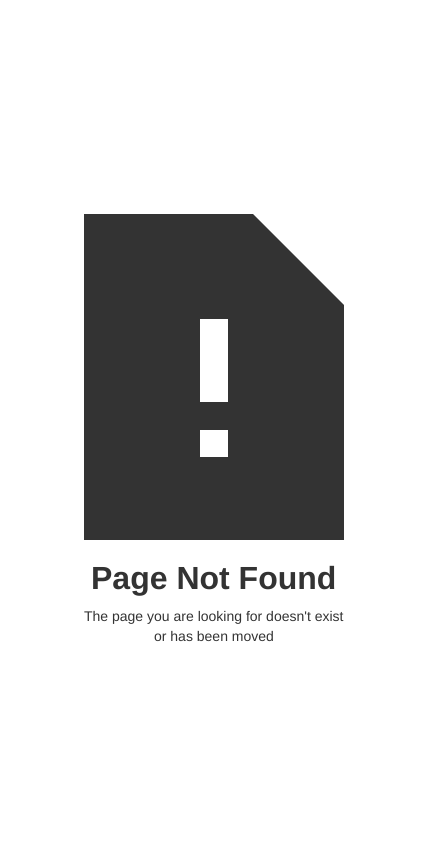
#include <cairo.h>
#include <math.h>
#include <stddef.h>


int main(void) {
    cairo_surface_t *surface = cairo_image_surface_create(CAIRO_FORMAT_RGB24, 428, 860);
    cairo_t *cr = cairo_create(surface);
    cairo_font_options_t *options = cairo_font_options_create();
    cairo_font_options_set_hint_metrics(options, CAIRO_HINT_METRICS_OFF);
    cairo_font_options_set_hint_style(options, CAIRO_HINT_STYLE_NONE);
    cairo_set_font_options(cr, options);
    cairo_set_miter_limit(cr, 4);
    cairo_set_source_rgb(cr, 1, 1, 1);
    cairo_paint(cr);
    cairo_set_source_rgb(cr, 0.2, 0.2, 0.2);
    cairo_set_fill_rule(cr, CAIRO_FILL_RULE_EVEN_ODD);
    cairo_new_path(cr);
    cairo_move_to(cr, 84, 214);
    cairo_line_to(cr, 253, 214);
    cairo_line_to(cr, 344, 305);
    cairo_line_to(cr, 344, 540);
    cairo_line_to(cr, 84, 540);
    cairo_close_path(cr);
    cairo_move_to(cr, 200, 319);
    cairo_line_to(cr, 228, 319);
    cairo_line_to(cr, 228, 402);
    cairo_line_to(cr, 200, 402);
    cairo_close_path(cr);
    cairo_move_to(cr, 200, 430);
    cairo_line_to(cr, 228, 430);
    cairo_line_to(cr, 228, 457);
    cairo_line_to(cr, 200, 457);
    cairo_close_path(cr);
    cairo_fill(cr);
    cairo_select_font_face(cr, "Liberation Sans", CAIRO_FONT_SLANT_NORMAL, CAIRO_FONT_WEIGHT_BOLD);
    cairo_set_font_size(cr, 32);
    cairo_move_to(cr, 91, 589);
    cairo_show_text(cr, "Page Not Found");
    cairo_select_font_face(cr, "Liberation Sans", CAIRO_FONT_SLANT_NORMAL, CAIRO_FONT_WEIGHT_NORMAL);
    cairo_set_font_size(cr, 14);
    cairo_move_to(cr, 84, 621);
    cairo_show_text(cr, "The page you are looking for doesn't exist");
    cairo_move_to(cr, 154, 641);
    cairo_show_text(cr, "or has been moved");
    cairo_surface_write_to_png(surface, "page.png");
    cairo_font_options_destroy(options);
    cairo_destroy(cr);
    cairo_surface_destroy(surface);
    return 0;
}
